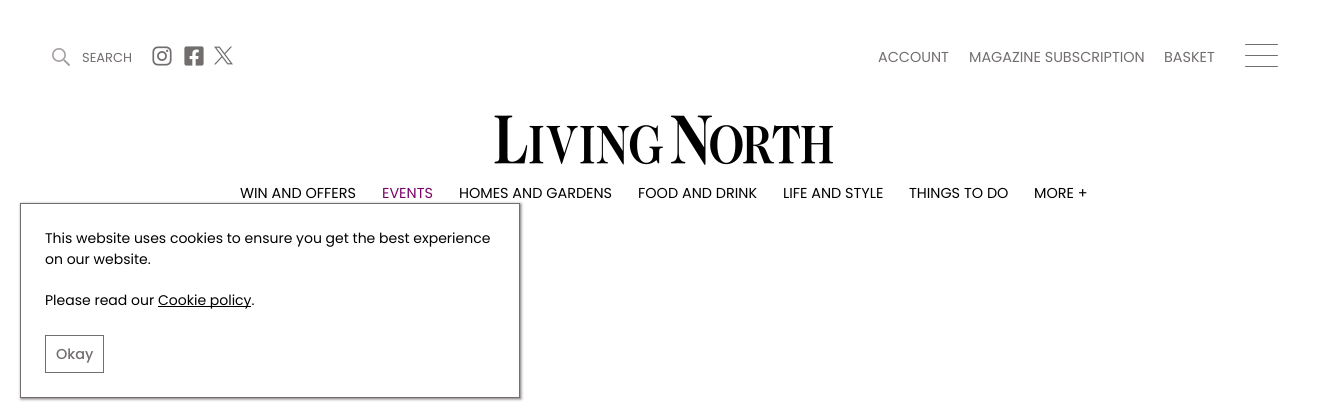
#include <cairo.h>
#include <math.h>
#include <stddef.h>


static void round_rect(cairo_t *cr, double x, double y, double w, double h, double r) {
    cairo_new_sub_path(cr);
    cairo_arc(cr, x + w - r, y + h - r, r, 0, M_PI / 2);
    cairo_arc(cr, x + r, y + h - r, r, M_PI / 2, M_PI);
    cairo_arc(cr, x + r, y + r, r, M_PI, 1.5 * M_PI);
    cairo_arc(cr, x + w - r, y + r, r, 1.5 * M_PI, 2 * M_PI);
    cairo_close_path(cr);
}

static void shadow(cairo_t *cr, double x, double y, double w, double h, double r, double blur, double alpha) {
    cairo_push_group_with_content(cr, CAIRO_CONTENT_ALPHA);
    cairo_set_operator(cr, CAIRO_OPERATOR_SOURCE);
    for (int i = 15; i >= -15 && fmin(w, h) + blur * i / 3 > 0; i -= 2) {
        double e = blur * i / 6;
        cairo_set_source_rgba(cr, 0, 0, 0, alpha * erfc((i - 1) / 8.5) / 2);
        round_rect(cr, x - e, y - e, w + 2 * e, h + 2 * e, fmax(0, fmin(r + e + blur * .6, fmin(w, h) / 2 + e)));
        cairo_fill(cr);
    }
    cairo_pattern_t *soft = cairo_pop_group(cr);
    cairo_mask(cr, soft);
    cairo_pattern_destroy(soft);
}

static void picture(cairo_t *cr, const char *path, double x, double y, double w, double h) {
    cairo_surface_t *image = cairo_image_surface_create_from_png(path);
    cairo_save(cr);
    cairo_set_source_surface(cr, image, x, y);
    cairo_rectangle(cr, x, y, w, h);
    cairo_fill(cr);
    cairo_restore(cr);
    cairo_surface_destroy(image);
}

int main(void) {
    cairo_surface_t *surface = cairo_image_surface_create(CAIRO_FORMAT_RGB24, 1328, 418);
    cairo_t *cr = cairo_create(surface);
    cairo_font_options_t *options = cairo_font_options_create();
    cairo_font_options_set_hint_metrics(options, CAIRO_HINT_METRICS_OFF);
    cairo_font_options_set_hint_style(options, CAIRO_HINT_STYLE_NONE);
    cairo_set_font_options(cr, options);
    cairo_set_miter_limit(cr, 4);
    cairo_set_source_rgb(cr, 1, 1, 1);
    cairo_paint(cr);
    picture(cr, "img1.png", 52, 48, 18, 18);
    cairo_select_font_face(cr, "Poppins", CAIRO_FONT_SLANT_NORMAL, CAIRO_FONT_WEIGHT_NORMAL);
    cairo_set_font_size(cr, 13);
    cairo_set_source_rgb(cr, 0.451, 0.431, 0.431);
    cairo_move_to(cr, 82, 62);
    cairo_show_text(cr, "SEARCH");
    picture(cr, "img2.png", 152, 46, 20, 20);
    picture(cr, "img3.png", 184, 46, 20, 20);
    picture(cr, "img4.png", 214, 46, 19, 19);
    cairo_set_font_size(cr, 14.4);
    cairo_move_to(cr, 878, 62);
    cairo_show_text(cr, "ACCOUNT");
    cairo_move_to(cr, 969, 62);
    cairo_show_text(cr, "MAGAZINE SUBSCRIPTION");
    cairo_move_to(cr, 1164, 62);
    cairo_show_text(cr, "BASKET");
    round_rect(cr, 1245, 44, 33, 1, 0.5);
    cairo_fill(cr);
    round_rect(cr, 1245, 55, 33, 1, 0.5);
    cairo_fill(cr);
    round_rect(cr, 1245, 66, 33, 1, 0.5);
    cairo_fill(cr);
    picture(cr, "img5.png", 494, 115, 339, 50);
    cairo_set_source_rgb(cr, 0, 0, 0);
    cairo_move_to(cr, 240, 198);
    cairo_show_text(cr, "WIN AND OFFERS");
    cairo_set_source_rgb(cr, 0.478, 0.016, 0.4);
    cairo_move_to(cr, 382, 198);
    cairo_show_text(cr, "EVENTS");
    cairo_set_source_rgb(cr, 0, 0, 0);
    cairo_move_to(cr, 459, 198);
    cairo_show_text(cr, "HOMES AND GARDENS");
    cairo_move_to(cr, 638, 198);
    cairo_show_text(cr, "FOOD AND DRINK");
    cairo_move_to(cr, 783, 198);
    cairo_show_text(cr, "LIFE AND STYLE");
    cairo_move_to(cr, 909, 198);
    cairo_show_text(cr, "THINGS TO DO");
    cairo_move_to(cr, 1034, 198);
    cairo_show_text(cr, "MORE +");
    cairo_set_source_rgb(cr, 0.451, 0.431, 0.431);
    shadow(cr, 21, 204, 500, 195, 0, 1.5, 1);
    cairo_set_source_rgb(cr, 1, 1, 1);
    cairo_rectangle(cr, 20.5, 203.5, 499, 194);
    cairo_fill_preserve(cr);
    cairo_set_source_rgb(cr, 0.451, 0.431, 0.431);
    cairo_set_line_width(cr, 1);
    cairo_stroke(cr);
    cairo_set_font_size(cr, 14);
    cairo_set_source_rgb(cr, 0, 0, 0);
    cairo_move_to(cr, 45, 243);
    cairo_show_text(cr, "This website uses cookies to ensure you get the best experience");
    cairo_move_to(cr, 45, 264);
    cairo_show_text(cr, "on our website.");
    cairo_move_to(cr, 45, 305);
    cairo_show_text(cr, "Please read our");
    cairo_rectangle(cr, 158, 306, 93, 1);
    cairo_fill(cr);
    cairo_move_to(cr, 158, 305);
    cairo_show_text(cr, "Cookie policy.");
    cairo_rectangle(cr, 45.5, 335.5, 58, 37);
    cairo_set_source_rgb(cr, 0.451, 0.431, 0.431);
    cairo_stroke(cr);
    cairo_select_font_face(cr, "Poppins Medium", CAIRO_FONT_SLANT_NORMAL, CAIRO_FONT_WEIGHT_NORMAL);
    cairo_set_font_size(cr, 14.4);
    cairo_move_to(cr, 56, 359);
    cairo_show_text(cr, "Okay");
    cairo_surface_write_to_png(surface, "page.png");
    cairo_font_options_destroy(options);
    cairo_destroy(cr);
    cairo_surface_destroy(surface);
    return 0;
}
